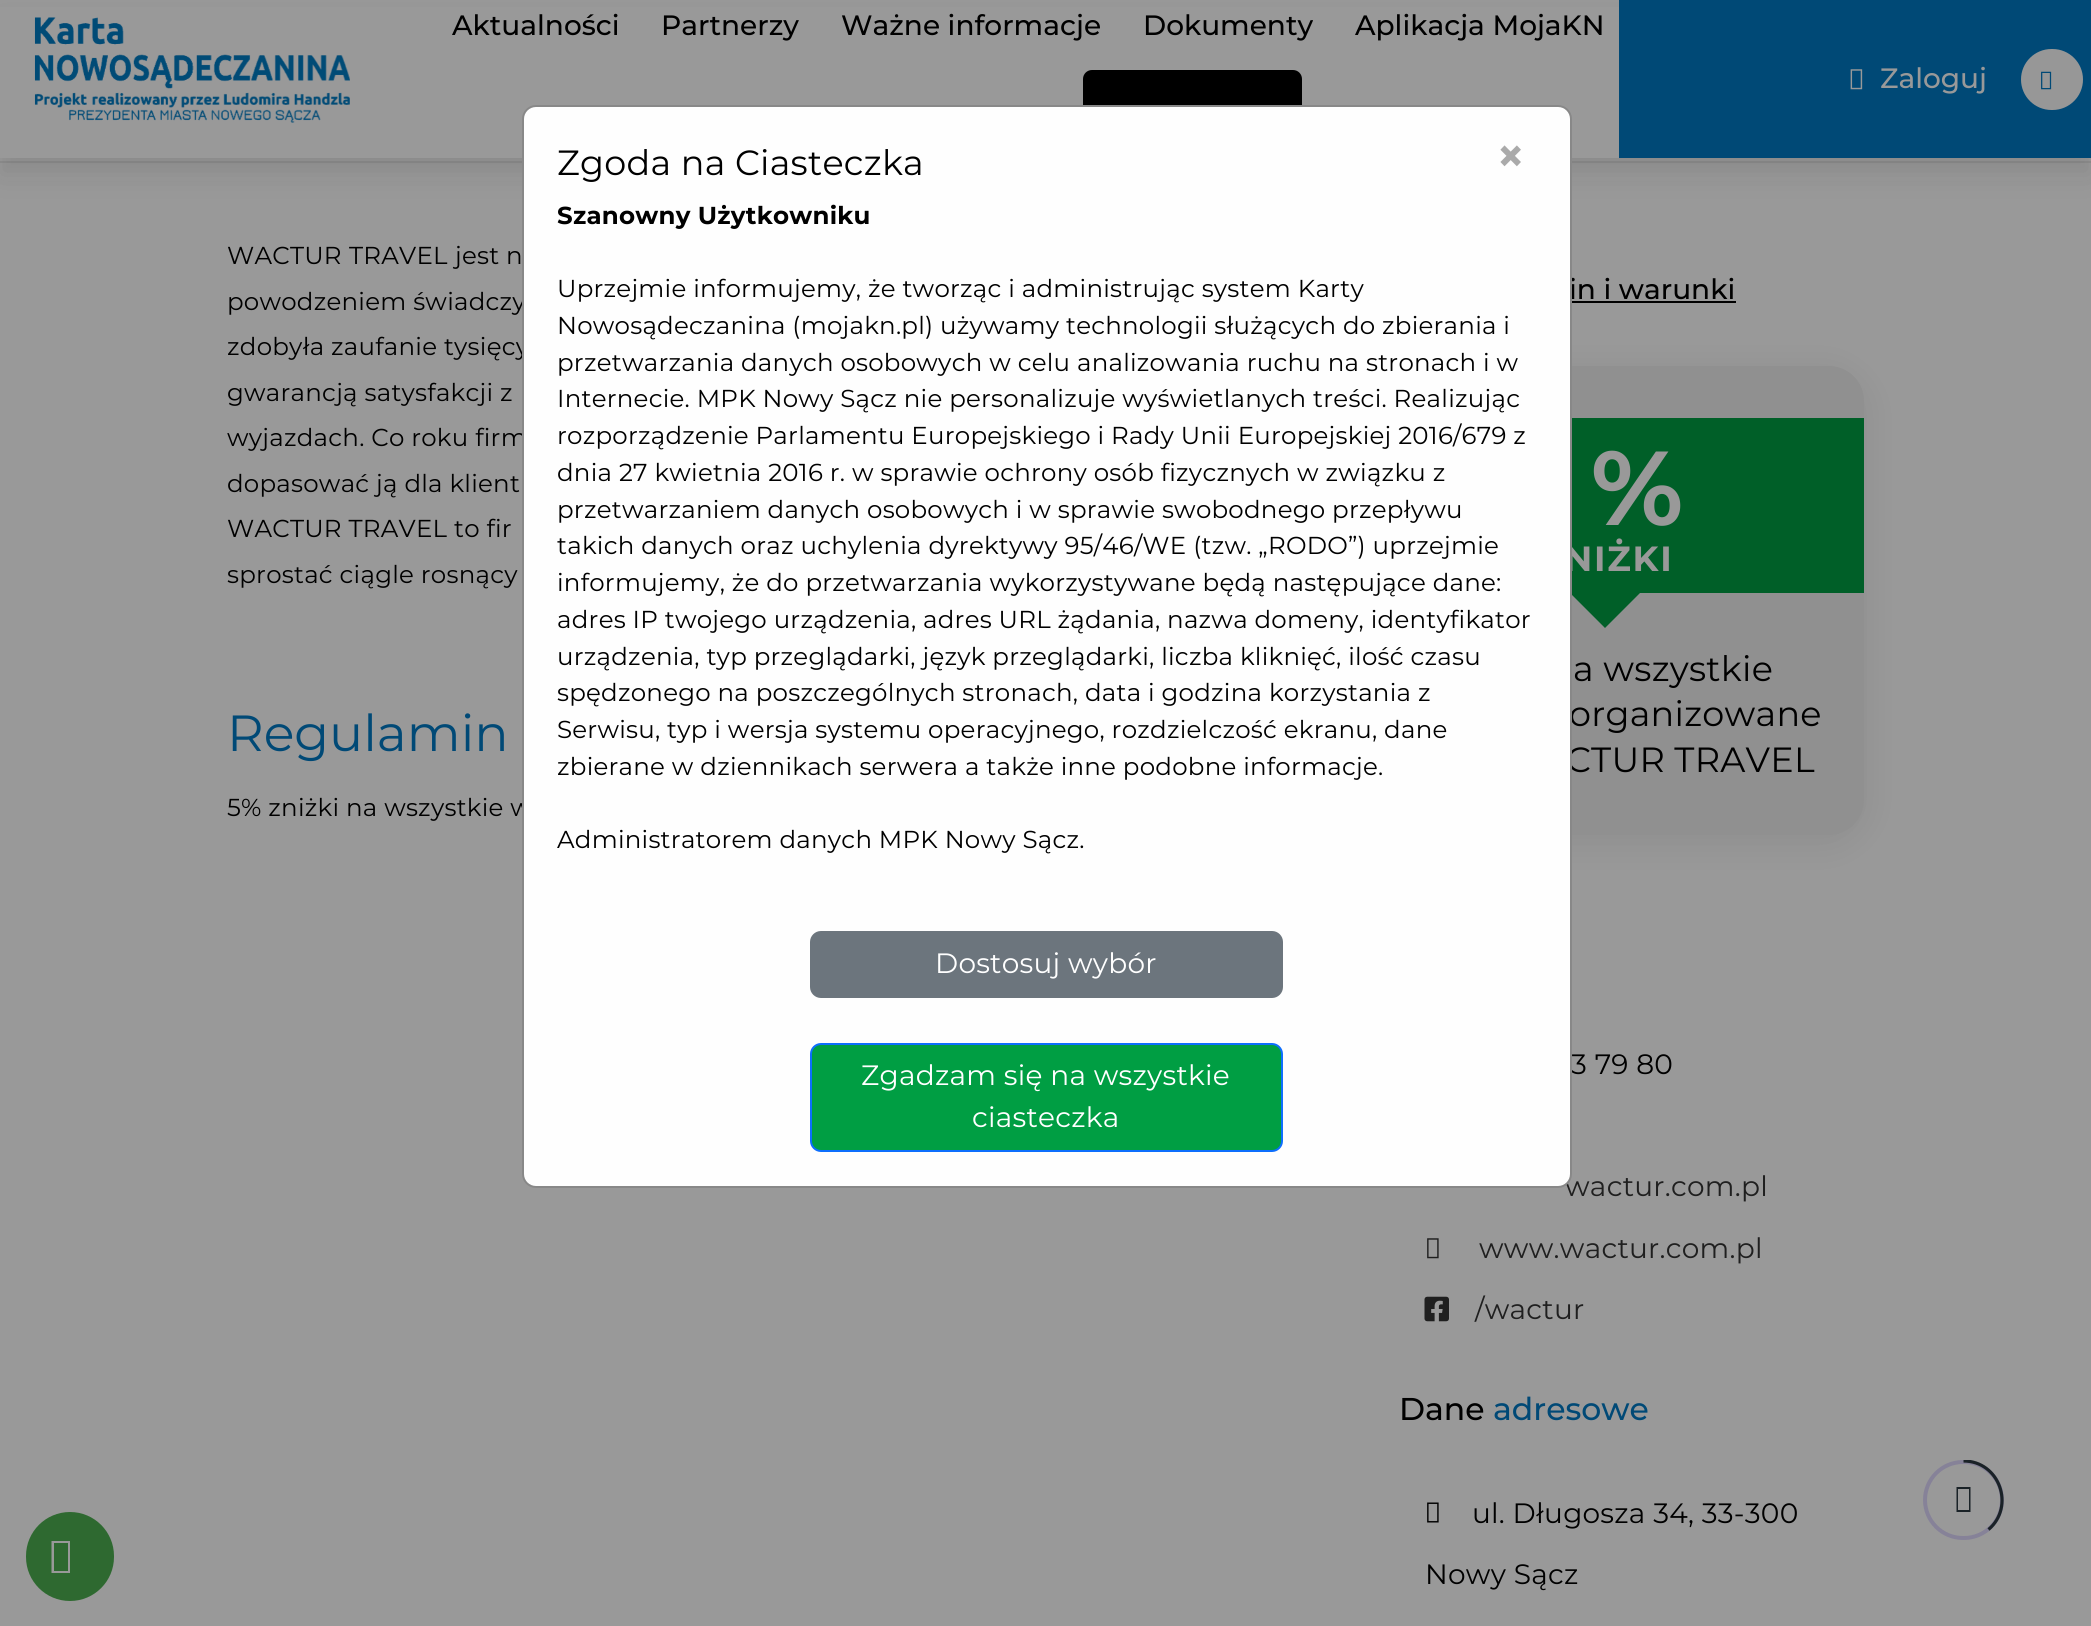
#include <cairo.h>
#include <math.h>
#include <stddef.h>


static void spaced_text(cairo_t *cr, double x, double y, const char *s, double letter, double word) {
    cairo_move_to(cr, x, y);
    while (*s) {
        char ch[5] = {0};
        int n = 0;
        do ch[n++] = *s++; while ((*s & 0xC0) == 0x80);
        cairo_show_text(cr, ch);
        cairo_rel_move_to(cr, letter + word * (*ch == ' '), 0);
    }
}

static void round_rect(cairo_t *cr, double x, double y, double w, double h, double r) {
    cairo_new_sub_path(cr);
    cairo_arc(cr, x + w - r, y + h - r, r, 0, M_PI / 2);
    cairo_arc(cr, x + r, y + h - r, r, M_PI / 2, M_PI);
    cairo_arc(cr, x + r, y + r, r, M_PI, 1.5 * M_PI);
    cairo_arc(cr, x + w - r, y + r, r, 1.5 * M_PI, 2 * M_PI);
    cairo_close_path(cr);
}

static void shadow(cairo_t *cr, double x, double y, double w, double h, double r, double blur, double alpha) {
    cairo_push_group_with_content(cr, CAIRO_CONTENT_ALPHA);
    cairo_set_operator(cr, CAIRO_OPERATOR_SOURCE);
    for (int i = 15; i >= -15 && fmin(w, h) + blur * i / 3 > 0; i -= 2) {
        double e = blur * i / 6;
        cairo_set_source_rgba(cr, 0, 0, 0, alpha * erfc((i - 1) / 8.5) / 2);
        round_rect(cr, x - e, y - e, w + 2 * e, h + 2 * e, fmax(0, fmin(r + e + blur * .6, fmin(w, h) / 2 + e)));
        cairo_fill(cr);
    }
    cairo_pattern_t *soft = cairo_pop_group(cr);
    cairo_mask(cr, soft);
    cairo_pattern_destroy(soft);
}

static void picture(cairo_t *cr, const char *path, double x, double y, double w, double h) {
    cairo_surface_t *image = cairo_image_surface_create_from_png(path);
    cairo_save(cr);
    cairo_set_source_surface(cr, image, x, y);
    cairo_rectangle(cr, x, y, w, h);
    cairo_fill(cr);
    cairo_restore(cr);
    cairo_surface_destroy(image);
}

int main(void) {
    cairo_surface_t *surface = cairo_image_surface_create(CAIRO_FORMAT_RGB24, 2091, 1626);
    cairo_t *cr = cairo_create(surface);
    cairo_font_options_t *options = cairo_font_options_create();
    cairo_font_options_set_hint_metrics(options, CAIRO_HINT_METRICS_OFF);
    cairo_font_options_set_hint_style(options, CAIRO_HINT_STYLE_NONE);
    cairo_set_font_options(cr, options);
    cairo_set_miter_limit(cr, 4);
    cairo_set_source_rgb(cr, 0.6, 0.6, 0.6);
    cairo_paint(cr);
    cairo_set_source_rgb(cr, 0.557, 0.557, 0.557);
    cairo_rectangle(cr, 0, 161, 2091, 2);
    cairo_fill(cr);
    cairo_set_source_rgb(cr, 0.059, 0.059, 0.059);
    shadow(cr, 0, 18, 2091, 157, 0, 13, 0.1);
    cairo_set_source_rgb(cr, 0.6, 0.6, 0.6);
    cairo_rectangle(cr, 0, 7, 1619, 151);
    cairo_fill(cr);
    picture(cr, "img1.png", 34, 17, 316, 106);
    cairo_select_font_face(cr, "Montserrat Medium", CAIRO_FONT_SLANT_NORMAL, CAIRO_FONT_WEIGHT_NORMAL);
    cairo_set_font_size(cr, 28);
    cairo_set_source_rgb(cr, 0, 0, 0);
    cairo_move_to(cr, 452, 35);
    cairo_show_text(cr, "Aktualności");
    cairo_move_to(cr, 661, 35);
    cairo_show_text(cr, "Partnerzy");
    cairo_move_to(cr, 841, 35);
    cairo_show_text(cr, "Ważne informacje");
    cairo_move_to(cr, 1143, 35);
    cairo_show_text(cr, "Dokumenty");
    cairo_move_to(cr, 1355, 35);
    cairo_show_text(cr, "Aplikacja MojaKN");
    round_rect(cr, 1083, 70, 219, 70, 9);
    cairo_fill(cr);
    cairo_set_source_rgb(cr, 0, 0.286, 0.463);
    cairo_rectangle(cr, 1619, 0, 472, 158);
    cairo_fill(cr);
    picture(cr, "img2.png", 1850, 69, 13, 21);
    cairo_set_source_rgb(cr, 0.6, 0.6, 0.6);
    cairo_move_to(cr, 1880, 88);
    cairo_show_text(cr, "Zaloguj");
    cairo_set_source_rgb(cr, 0.592, 0.592, 0.592);
    round_rect(cr, 2022, 50, 60, 59, 29.5);
    cairo_fill_preserve(cr);
    cairo_stroke(cr);
    picture(cr, "img3.png", 2041, 71, 11, 19);
    cairo_select_font_face(cr, "Montserrat", CAIRO_FONT_SLANT_NORMAL, CAIRO_FONT_WEIGHT_NORMAL);
    cairo_set_font_size(cr, 24.5);
    cairo_set_source_rgb(cr, 0, 0, 0);
    spaced_text(cr, 227, 310, "powodzeniem świadczy", 0.25, 0);
    spaced_text(cr, 227, 355, "zdobyła zaufanie tysięcy", 0.25, 0);
    spaced_text(cr, 227, 446, "wyjazdach. Co roku firm", 0.25, 0);
    spaced_text(cr, 227, 816, "5% zniżki na wszystkie w", 0.25, 0);
    cairo_select_font_face(cr, "Montserrat Medium", CAIRO_FONT_SLANT_NORMAL, CAIRO_FONT_WEIGHT_NORMAL);
    cairo_set_font_size(cr, 28);
    cairo_move_to(cr, 1569, 299);
    cairo_show_text(cr, "in i warunki");
    cairo_set_source_rgb(cr, 0.016, 0.016, 0.016);
    shadow(cr, 1346, 373, 518, 469, 35, 18.5, 0.08);
    cairo_set_source_rgb(cr, 0.565, 0.565, 0.565);
    round_rect(cr, 1346, 366, 518, 469, 35);
    cairo_fill(cr);
    cairo_set_source_rgb(cr, 0, 0.373, 0.157);
    cairo_rectangle(cr, 1572, 418, 292, 175);
    cairo_fill(cr);
    cairo_select_font_face(cr, "Montserrat", CAIRO_FONT_SLANT_NORMAL, CAIRO_FONT_WEIGHT_BOLD);
    cairo_set_font_size(cr, 35);
    cairo_set_source_rgb(cr, 0.6, 0.6, 0.6);
    spaced_text(cr, 1564, 571, "NIŻKI", 1.75, 0);
    cairo_set_source_rgb(cr, 0, 0.373, 0.157);
    cairo_new_path(cr);
    cairo_move_to(cr, 1570, 593);
    cairo_line_to(cr, 1640, 593);
    cairo_line_to(cr, 1605, 628);
    cairo_close_path(cr);
    cairo_fill(cr);
    cairo_select_font_face(cr, "Montserrat", CAIRO_FONT_SLANT_NORMAL, CAIRO_FONT_WEIGHT_NORMAL);
    cairo_set_source_rgb(cr, 0, 0, 0);
    spaced_text(cr, 1569, 726, "organizowane", 0.25, 0);
    spaced_text(cr, 1566, 772, "CTUR TRAVEL", 0.25, 0);
    cairo_set_font_size(cr, 28);
    spaced_text(cr, 1571, 1074, "3 79 80", 0.25, 0);
    cairo_set_source_rgb(cr, 0.122, 0.122, 0.122);
    spaced_text(cr, 1565, 1196, "wactur.com.pl", 0.25, 0);
    cairo_set_source_rgb(cr, 0.996, 0.996, 0.996);
    round_rect(cr, 523, 106, 1048, 1081, 13);
    cairo_fill_preserve(cr);
    cairo_set_source_rgb(cr, 0.533, 0.533, 0.533);
    cairo_stroke(cr);
    cairo_set_font_size(cr, 35);
    cairo_set_source_rgb(cr, 0, 0, 0);
    spaced_text(cr, 557, 175, "Zgoda na Ciasteczka", 0.25, 0);
    cairo_select_font_face(cr, "Montserrat", CAIRO_FONT_SLANT_NORMAL, CAIRO_FONT_WEIGHT_BOLD);
    cairo_set_font_size(cr, 49);
    cairo_set_source_rgb(cr, 0.667, 0.667, 0.667);
    spaced_text(cr, 1496, 173, "×", 0.25, 0);
    cairo_set_font_size(cr, 24.5);
    cairo_set_source_rgb(cr, 0, 0, 0);
    spaced_text(cr, 557, 224, "Szanowny Użytkowniku", 0.25, 0);
    cairo_select_font_face(cr, "Montserrat", CAIRO_FONT_SLANT_NORMAL, CAIRO_FONT_WEIGHT_NORMAL);
    spaced_text(cr, 557, 297, "Uprzejmie informujemy, że tworząc i administrując system Karty", 0.25, 0);
    spaced_text(cr, 557, 334, "Nowosądeczanina (mojakn.pl) używamy technologii służących do zbierania i", 0.25, 0);
    spaced_text(cr, 557, 371, "przetwarzania danych osobowych w celu analizowania ruchu na stronach i w", 0.25, 0);
    spaced_text(cr, 557, 407, "Internecie. MPK Nowy Sącz nie personalizuje wyświetlanych treści. Realizując", 0.25, 0);
    spaced_text(cr, 557, 444, "rozporządzenie Parlamentu Europejskiego i Rady Unii Europejskiej 2016/679 z", 0.25, 0);
    spaced_text(cr, 557, 481, "dnia 27 kwietnia 2016 r. w sprawie ochrony osób fizycznych w związku z", 0.25, 0);
    spaced_text(cr, 557, 518, "przetwarzaniem danych osobowych i w sprawie swobodnego przepływu", 0.25, 0);
    spaced_text(cr, 557, 554, "takich danych oraz uchylenia dyrektywy 95/46/WE (tzw. „RODO”) uprzejmie", 0.25, 0);
    spaced_text(cr, 557, 591, "informujemy, że do przetwarzania wykorzystywane będą następujące dane:", 0.25, 0);
    spaced_text(cr, 557, 628, "adres IP twojego urządzenia, adres URL żądania, nazwa domeny, identyfikator", 0.25, 0);
    spaced_text(cr, 557, 665, "urządzenia, typ przeglądarki, język przeglądarki, liczba kliknięć, ilość czasu", 0.25, 0);
    spaced_text(cr, 557, 701, "spędzonego na poszczególnych stronach, data i godzina korzystania z", 0.25, 0);
    spaced_text(cr, 557, 738, "Serwisu, typ i wersja systemu operacyjnego, rozdzielczość ekranu, dane", 0.25, 0);
    spaced_text(cr, 557, 775, "zbierane w dziennikach serwera a także inne podobne informacje.", 0.25, 0);
    spaced_text(cr, 557, 848, "Administratorem danych MPK Nowy Sącz.", 0.25, 0);
    cairo_set_source_rgb(cr, 0.424, 0.459, 0.49);
    round_rect(cr, 811, 932, 471, 65, 10);
    cairo_fill_preserve(cr);
    cairo_stroke(cr);
    cairo_set_font_size(cr, 28);
    cairo_set_source_rgb(cr, 1, 1, 1);
    spaced_text(cr, 935, 973, "Dostosuj wybór", 0.25, 0);
    cairo_set_source_rgb(cr, 0, 0.62, 0.263);
    round_rect(cr, 811, 1044, 471, 107, 10);
    cairo_fill_preserve(cr);
    cairo_set_source_rgb(cr, 0.051, 0.431, 0.992);
    cairo_stroke(cr);
    cairo_set_source_rgb(cr, 1, 1, 1);
    spaced_text(cr, 861, 1085, "Zgadzam się na wszystkie", 0.25, 0);
    spaced_text(cr, 972, 1127, "ciasteczka", 0.25, 0);
    cairo_set_font_size(cr, 24.5);
    cairo_set_source_rgb(cr, 0, 0, 0);
    spaced_text(cr, 227, 264, "WACTUR", 0.25, 0);
    spaced_text(cr, 349, 264, "TRAVEL", 0.25, 0);
    spaced_text(cr, 455, 264, "jest n", 0.25, 0);
    spaced_text(cr, 227, 401, "gwarancją satysfakcji z", 0.25, 0);
    spaced_text(cr, 227, 492, "dopasować ją dla klient", 0.25, 0);
    spaced_text(cr, 227, 537, "WACTUR TRAVEL to fir", 0.25, 0);
    spaced_text(cr, 227, 583, "sprostać ciągle rosnący", 0.25, 0);
    cairo_set_font_size(cr, 50.75);
    cairo_set_source_rgb(cr, 0, 0.286, 0.463);
    cairo_move_to(cr, 227, 751);
    cairo_show_text(cr, "Regulamin");
    cairo_set_source_rgb(cr, 0, 0, 0);
    cairo_rectangle(cr, 1572, 301, 164, 2);
    cairo_fill(cr);
    cairo_select_font_face(cr, "Montserrat", CAIRO_FONT_SLANT_NORMAL, CAIRO_FONT_WEIGHT_BOLD);
    cairo_set_font_size(cr, 105);
    cairo_set_source_rgb(cr, 0.6, 0.6, 0.6);
    spaced_text(cr, 1591, 525, "%", 0.25, 0);
    cairo_select_font_face(cr, "Montserrat", CAIRO_FONT_SLANT_NORMAL, CAIRO_FONT_WEIGHT_NORMAL);
    cairo_set_font_size(cr, 35);
    cairo_set_source_rgb(cr, 0, 0, 0);
    spaced_text(cr, 1573, 681, "a wszystkie", 0.25, 0);
    picture(cr, "img4.png", 1427, 1238, 12, 21);
    cairo_set_font_size(cr, 28);
    cairo_set_source_rgb(cr, 0.122, 0.122, 0.122);
    spaced_text(cr, 1479, 1258, "www.wactur.com.pl", 0.25, 0);
    picture(cr, "img5.png", 1424, 1296, 25, 26);
    spaced_text(cr, 1475, 1319, "/wactur", 0.25, 0);
    cairo_select_font_face(cr, "Montserrat Medium", CAIRO_FONT_SLANT_NORMAL, CAIRO_FONT_WEIGHT_NORMAL);
    cairo_set_font_size(cr, 31.5);
    cairo_set_source_rgb(cr, 0, 0, 0);
    cairo_move_to(cr, 1399, 1420);
    cairo_show_text(cr, "Dane");
    cairo_set_source_rgb(cr, 0, 0.286, 0.463);
    cairo_move_to(cr, 1493, 1420);
    cairo_show_text(cr, "adresowe");
    picture(cr, "img6.png", 1427, 1502, 12, 21);
    cairo_select_font_face(cr, "Montserrat", CAIRO_FONT_SLANT_NORMAL, CAIRO_FONT_WEIGHT_NORMAL);
    cairo_set_font_size(cr, 28);
    cairo_set_source_rgb(cr, 0, 0, 0);
    spaced_text(cr, 1472, 1523, "ul. Długosza 34, 33-300", 0.25, 0);
    spaced_text(cr, 1425, 1584, "Nowy Sącz", 0.25, 0);
    round_rect(cr, 1925, 1462, 77, 76, 38);
    cairo_set_source_rgb(cr, 0.525, 0.51, 0.596);
    cairo_set_line_width(cr, 4);
    cairo_stroke(cr);
    cairo_save(cr);
    cairo_rectangle(cr, 1923, 1460, 81, 80);
    cairo_clip(cr);
    cairo_new_path(cr);
    cairo_move_to(cr, 1963.5, 1461);
    cairo_curve_to(cr, 1999.5, 1461, 2015.5, 1506.5, 1988.5, 1529.5);
    cairo_set_source_rgb(cr, 0.102, 0.133, 0.153);
    cairo_set_line_width(cr, 3.2);
    cairo_stroke(cr);
    cairo_restore(cr);
    cairo_set_source_rgb(cr, 0.102, 0.133, 0.153);
    cairo_new_path(cr);
    cairo_move_to(cr, 1956.5, 1512);
    cairo_line_to(cr, 1956.5, 1487);
    cairo_line_to(cr, 1970.5, 1487);
    cairo_line_to(cr, 1970.5, 1512);
    cairo_close_path(cr);
    cairo_move_to(cr, 1958, 1510);
    cairo_line_to(cr, 1969, 1510);
    cairo_line_to(cr, 1969, 1489);
    cairo_line_to(cr, 1958, 1489);
    cairo_close_path(cr);
    cairo_fill(cr);
    cairo_set_source_rgb(cr, 0.18, 0.412, 0.188);
    round_rect(cr, 26, 1512, 88, 89, 44);
    cairo_fill(cr);
    cairo_set_source_rgb(cr, 0.6, 0.6, 0.6);
    cairo_new_path(cr);
    cairo_move_to(cr, 51.5, 1573);
    cairo_line_to(cr, 51.5, 1541);
    cairo_line_to(cr, 70, 1541);
    cairo_line_to(cr, 70, 1573);
    cairo_close_path(cr);
    cairo_move_to(cr, 54, 1571);
    cairo_line_to(cr, 68, 1571);
    cairo_line_to(cr, 68, 1543);
    cairo_line_to(cr, 54, 1543);
    cairo_close_path(cr);
    cairo_fill(cr);
    cairo_surface_write_to_png(surface, "page.png");
    cairo_font_options_destroy(options);
    cairo_destroy(cr);
    cairo_surface_destroy(surface);
    return 0;
}
